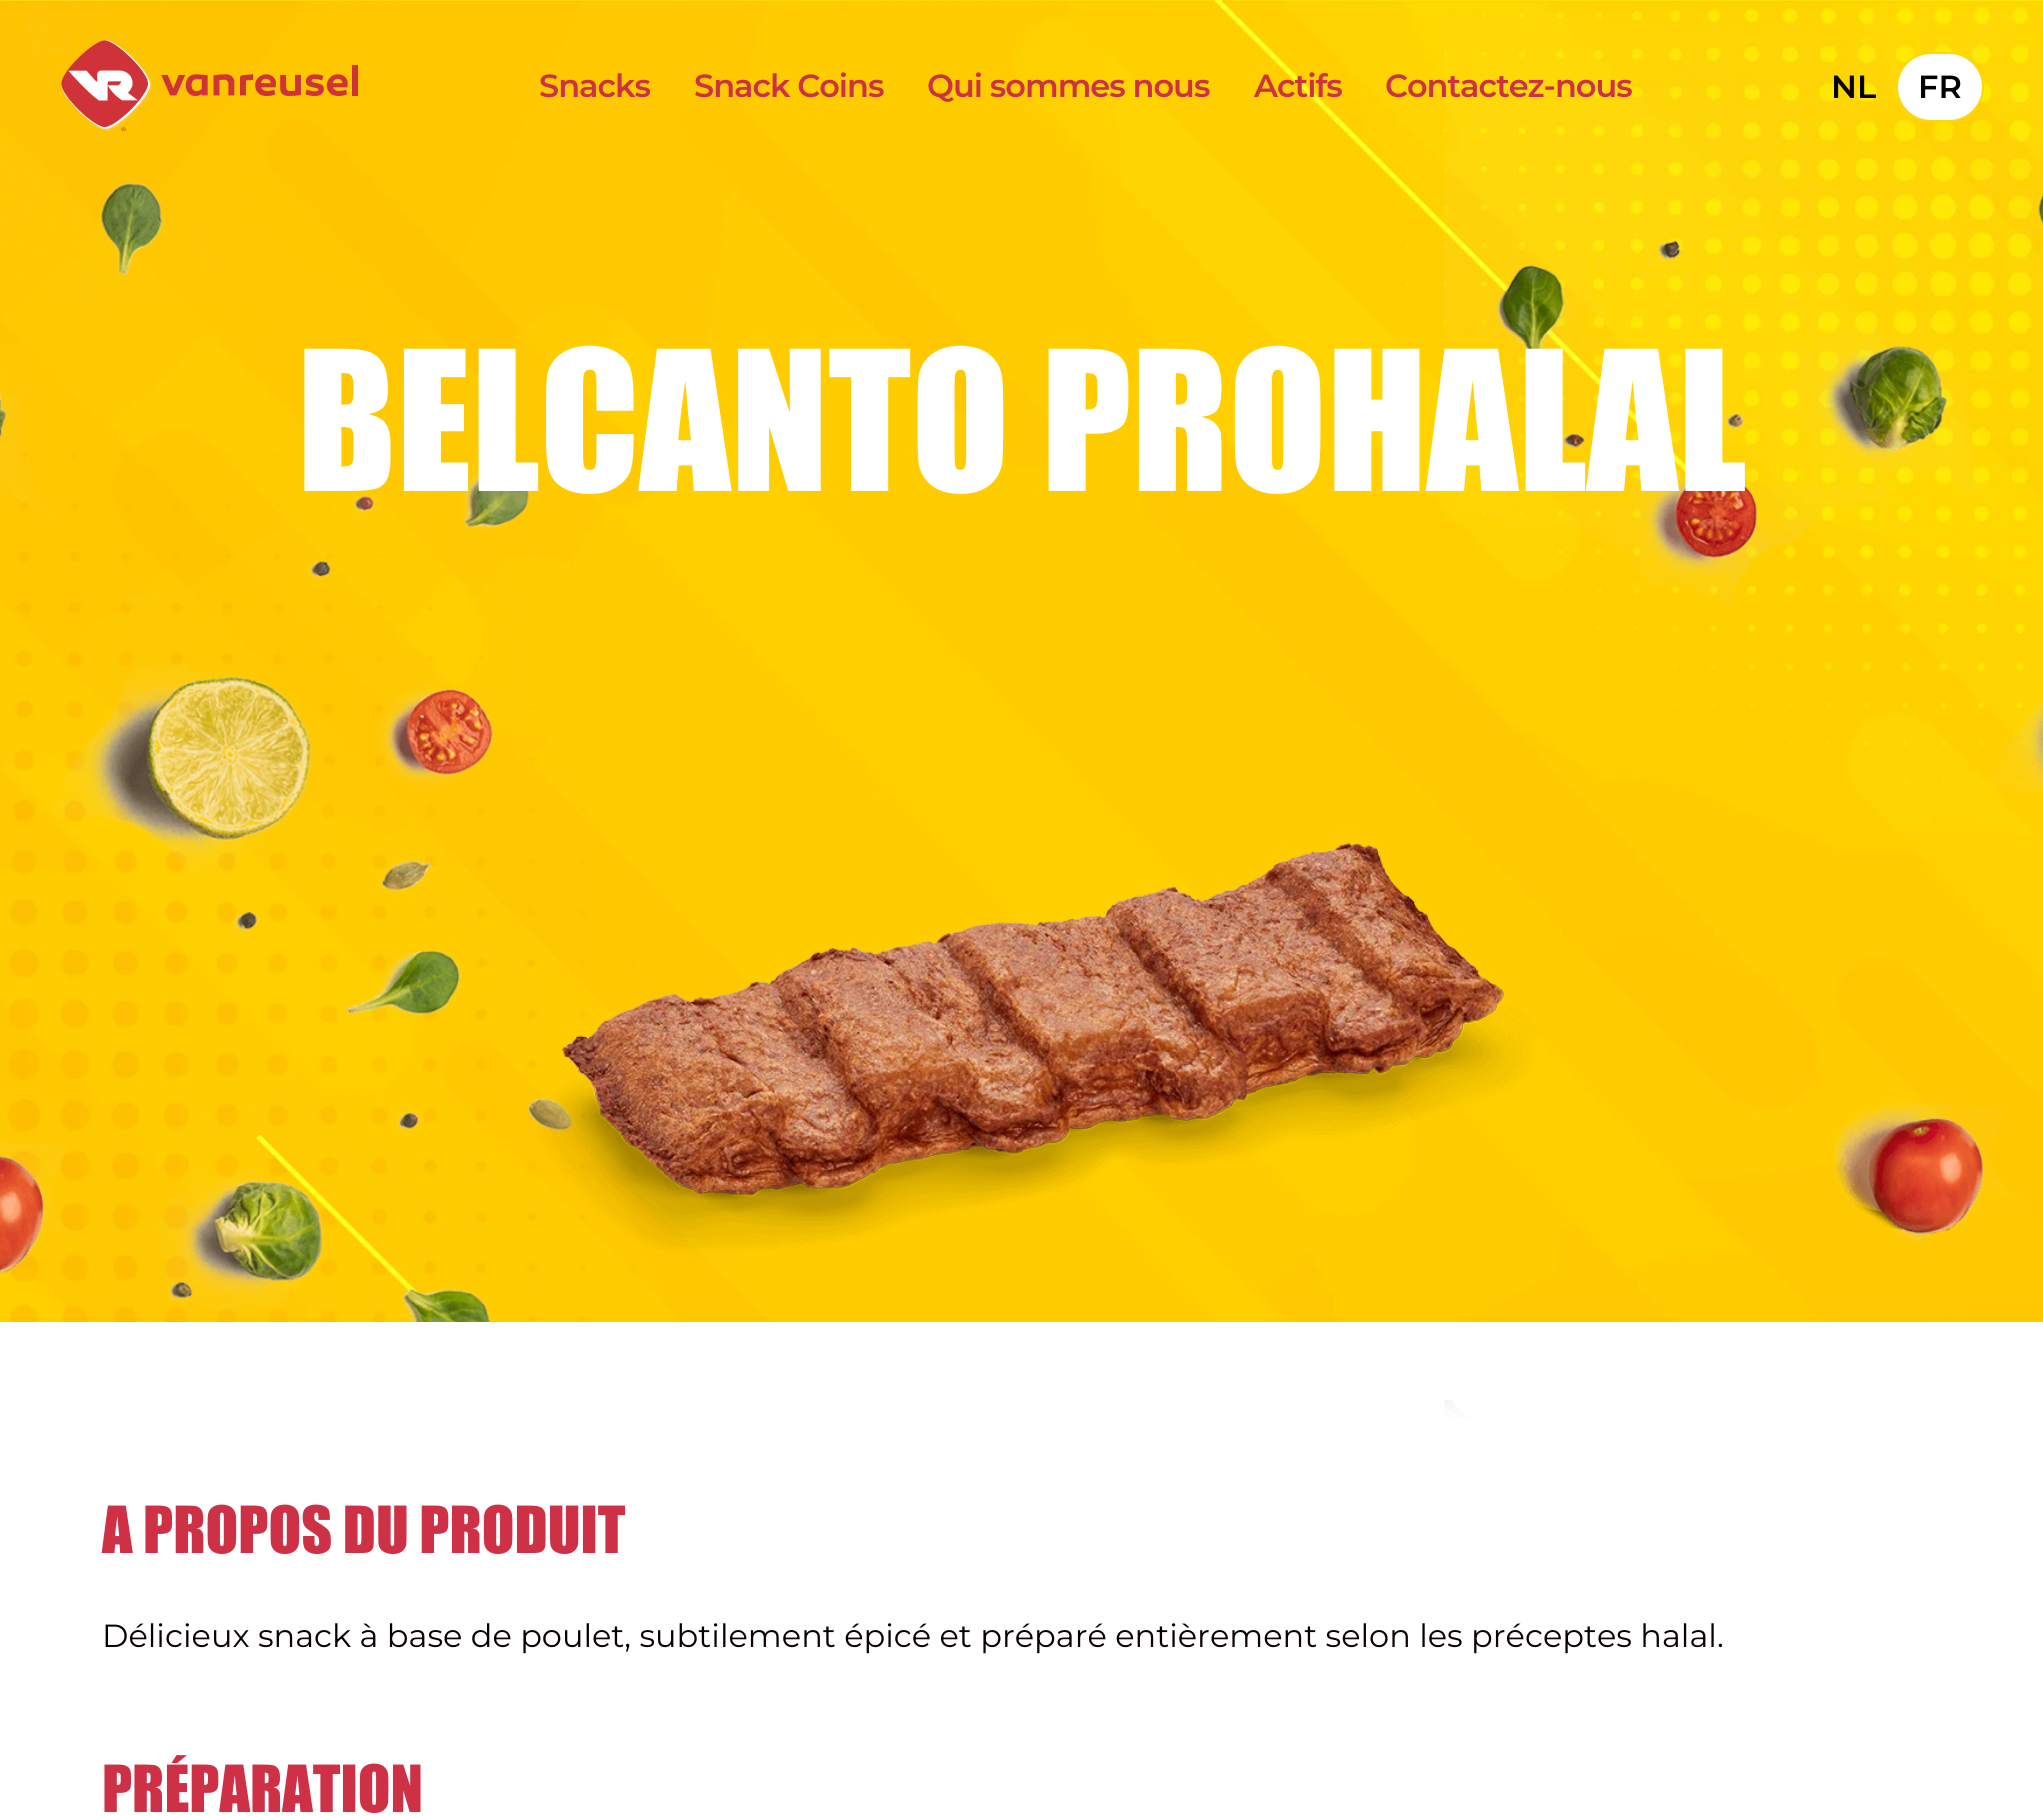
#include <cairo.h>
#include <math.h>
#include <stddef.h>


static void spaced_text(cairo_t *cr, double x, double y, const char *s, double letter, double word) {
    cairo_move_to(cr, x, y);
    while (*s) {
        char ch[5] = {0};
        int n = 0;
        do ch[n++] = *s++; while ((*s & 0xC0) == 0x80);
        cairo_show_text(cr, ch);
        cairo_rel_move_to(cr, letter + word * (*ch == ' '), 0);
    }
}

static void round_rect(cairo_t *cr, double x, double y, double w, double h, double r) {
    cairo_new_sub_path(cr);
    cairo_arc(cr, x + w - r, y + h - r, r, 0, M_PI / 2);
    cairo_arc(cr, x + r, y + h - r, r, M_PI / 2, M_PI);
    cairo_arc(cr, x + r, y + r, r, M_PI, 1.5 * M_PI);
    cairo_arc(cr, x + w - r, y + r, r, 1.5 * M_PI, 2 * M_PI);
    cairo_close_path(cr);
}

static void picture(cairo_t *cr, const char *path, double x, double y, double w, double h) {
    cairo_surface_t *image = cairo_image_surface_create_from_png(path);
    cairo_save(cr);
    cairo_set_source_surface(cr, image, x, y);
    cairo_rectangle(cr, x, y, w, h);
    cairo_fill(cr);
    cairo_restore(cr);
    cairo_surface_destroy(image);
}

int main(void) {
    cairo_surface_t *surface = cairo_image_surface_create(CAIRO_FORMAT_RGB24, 2043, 1816);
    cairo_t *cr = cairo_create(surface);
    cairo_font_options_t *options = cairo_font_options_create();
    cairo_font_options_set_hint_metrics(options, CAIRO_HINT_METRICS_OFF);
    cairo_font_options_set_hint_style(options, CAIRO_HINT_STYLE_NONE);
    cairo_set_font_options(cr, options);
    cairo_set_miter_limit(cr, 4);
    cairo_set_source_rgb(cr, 1, 1, 1);
    cairo_paint(cr);
    picture(cr, "img2.png", 0, 0, 2043, 1322);
    picture(cr, "img3.png", 0, 0, 599, 1322);
    picture(cr, "img1.png", 61, 40, 297, 91);
    cairo_select_font_face(cr, "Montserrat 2 Thin", CAIRO_FONT_SLANT_NORMAL, CAIRO_FONT_WEIGHT_NORMAL);
    cairo_set_font_size(cr, 32);
    cairo_set_source_rgb(cr, 0.808, 0.188, 0.275);
    spaced_text(cr, 539, 97, "Snacks", -1, 0);
    spaced_text(cr, 694, 97, "Snack Coins", -1, 0);
    spaced_text(cr, 927, 97, "Qui sommes nous", -1, 0);
    spaced_text(cr, 1254, 97, "Actifs", -1, 0);
    picture(cr, "img4.png", 1444, 12, 599, 1406);
    spaced_text(cr, 1385, 97, "Contactez-nous", -1, 0);
    cairo_set_source_rgb(cr, 0, 0, 0);
    cairo_move_to(cr, 1831, 98);
    cairo_show_text(cr, "NL");
    cairo_set_source_rgb(cr, 1, 1, 1);
    round_rect(cr, 1897, 53, 86, 68, 34);
    cairo_fill_preserve(cr);
    cairo_set_source_rgb(cr, 0.988, 0.839, 0.059);
    cairo_stroke(cr);
    cairo_set_source_rgb(cr, 0, 0, 0);
    cairo_move_to(cr, 1918, 98);
    cairo_show_text(cr, "FR");
    cairo_select_font_face(cr, "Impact", CAIRO_FONT_SLANT_NORMAL, CAIRO_FONT_WEIGHT_NORMAL);
    cairo_set_font_size(cr, 180);
    cairo_set_source_rgb(cr, 1, 1, 1);
    cairo_move_to(cr, 297, 491);
    cairo_show_text(cr, "BELCANTO PROHALAL");
    picture(cr, "img5.png", 537, 843, 1002, 417);
    cairo_set_font_size(cr, 60);
    cairo_set_source_rgb(cr, 0.808, 0.188, 0.275);
    cairo_move_to(cr, 102, 1553);
    cairo_show_text(cr, "A PROPOS DU PRODUIT");
    cairo_select_font_face(cr, "Montserrat Thin", CAIRO_FONT_SLANT_NORMAL, CAIRO_FONT_WEIGHT_NORMAL);
    cairo_set_font_size(cr, 32);
    cairo_set_source_rgb(cr, 0.039, 0.004, 0.004);
    cairo_move_to(cr, 102, 1647);
    cairo_show_text(cr, "Délicieux snack à base de poulet, subtilement épicé et préparé entièrement selon les préceptes halal.");
    cairo_select_font_face(cr, "Impact", CAIRO_FONT_SLANT_NORMAL, CAIRO_FONT_WEIGHT_NORMAL);
    cairo_set_font_size(cr, 60);
    cairo_set_source_rgb(cr, 0.808, 0.188, 0.275);
    cairo_move_to(cr, 102, 1812);
    cairo_show_text(cr, "PRÉPARATION");
    cairo_surface_write_to_png(surface, "page.png");
    cairo_font_options_destroy(options);
    cairo_destroy(cr);
    cairo_surface_destroy(surface);
    return 0;
}
